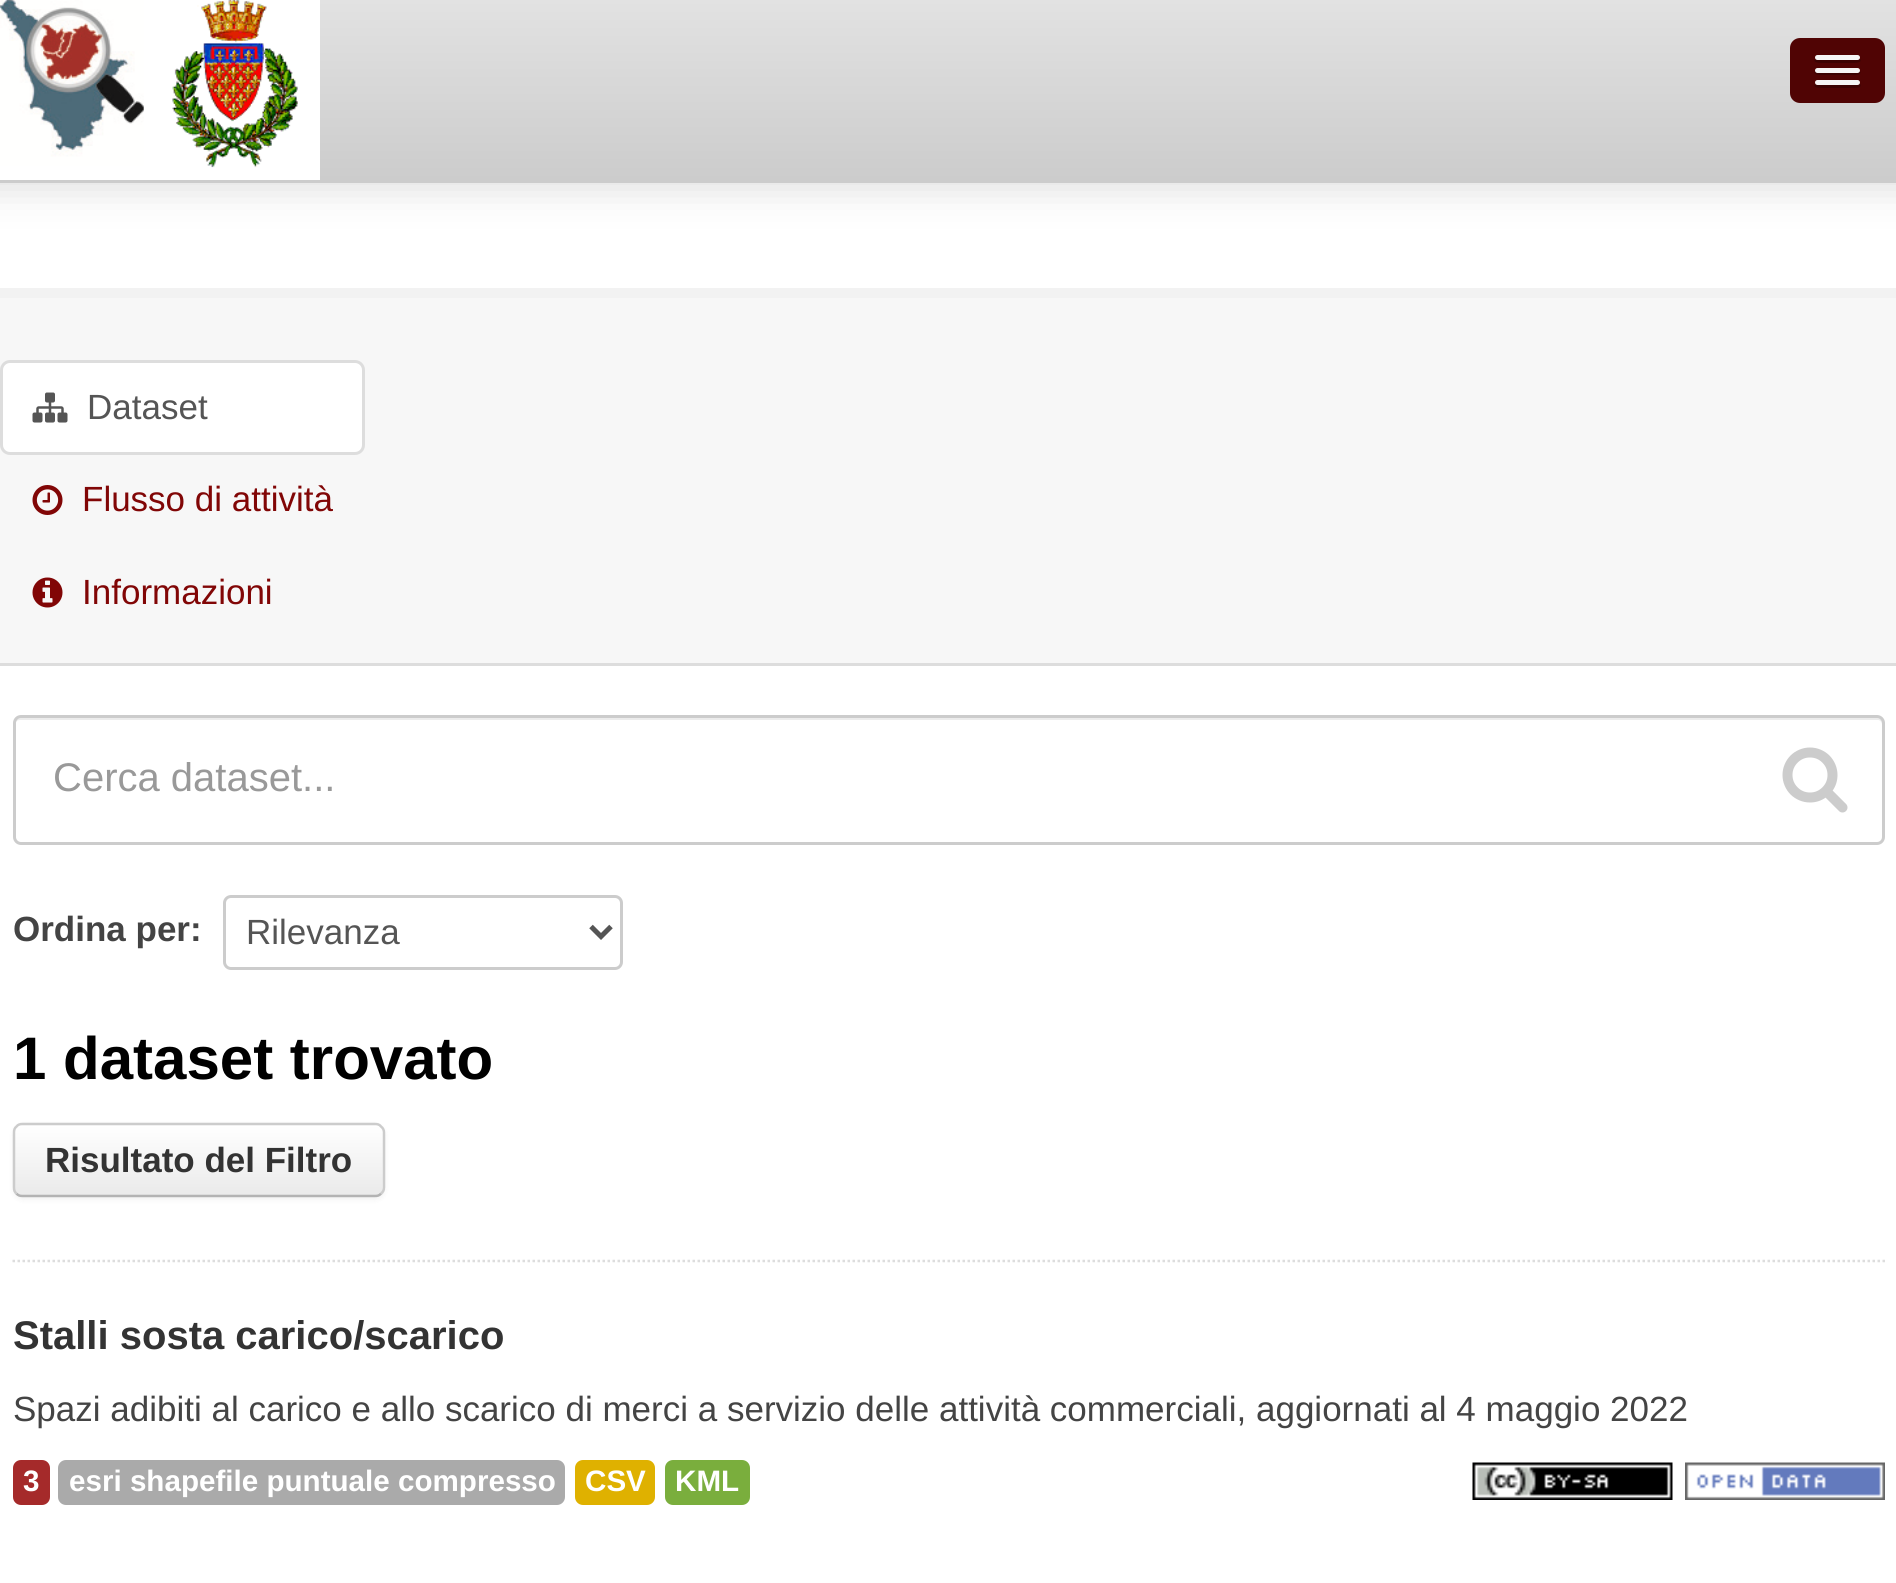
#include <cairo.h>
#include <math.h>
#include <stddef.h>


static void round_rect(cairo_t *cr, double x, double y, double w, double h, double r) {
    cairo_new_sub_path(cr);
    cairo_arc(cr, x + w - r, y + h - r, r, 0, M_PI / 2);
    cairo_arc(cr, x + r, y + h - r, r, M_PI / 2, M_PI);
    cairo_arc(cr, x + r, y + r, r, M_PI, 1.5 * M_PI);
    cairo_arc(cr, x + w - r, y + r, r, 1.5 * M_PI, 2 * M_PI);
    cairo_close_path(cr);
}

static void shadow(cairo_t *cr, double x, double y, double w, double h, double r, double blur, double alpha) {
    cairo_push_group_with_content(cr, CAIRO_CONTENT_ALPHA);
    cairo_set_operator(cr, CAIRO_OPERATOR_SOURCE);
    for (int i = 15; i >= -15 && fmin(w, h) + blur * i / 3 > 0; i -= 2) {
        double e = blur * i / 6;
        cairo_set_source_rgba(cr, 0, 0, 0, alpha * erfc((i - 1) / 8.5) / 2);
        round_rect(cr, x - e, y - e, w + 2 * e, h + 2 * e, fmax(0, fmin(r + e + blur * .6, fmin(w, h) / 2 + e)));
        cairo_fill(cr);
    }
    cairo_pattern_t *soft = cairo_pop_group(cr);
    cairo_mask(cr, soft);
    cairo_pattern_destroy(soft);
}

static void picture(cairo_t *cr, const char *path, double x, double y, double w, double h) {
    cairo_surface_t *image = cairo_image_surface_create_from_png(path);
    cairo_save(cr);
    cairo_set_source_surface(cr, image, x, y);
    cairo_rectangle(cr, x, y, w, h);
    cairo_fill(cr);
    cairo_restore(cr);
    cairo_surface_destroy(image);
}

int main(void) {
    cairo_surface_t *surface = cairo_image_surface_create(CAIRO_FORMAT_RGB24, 1896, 1583);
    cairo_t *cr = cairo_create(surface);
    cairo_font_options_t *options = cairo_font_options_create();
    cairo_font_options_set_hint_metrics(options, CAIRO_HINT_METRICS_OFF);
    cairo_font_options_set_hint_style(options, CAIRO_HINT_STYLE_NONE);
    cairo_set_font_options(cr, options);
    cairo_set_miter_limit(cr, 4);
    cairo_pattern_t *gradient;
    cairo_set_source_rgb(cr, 1, 1, 1);
    cairo_paint(cr);
    cairo_set_source_rgb(cr, 0.867, 0.867, 0.867);
    shadow(cr, -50, 5, 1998, 183, 0, 19, 1);
    gradient = cairo_pattern_create_linear(949, 0, 949, 180);
    cairo_pattern_add_color_stop_rgba(gradient, 0, 0.886, 0.886, 0.886, 1);
    cairo_pattern_add_color_stop_rgba(gradient, 1, 0.8, 0.8, 0.8, 1);
    cairo_set_source(cr, gradient);
    cairo_pattern_destroy(gradient);
    cairo_rectangle(cr, 320, 0, 1576, 180);
    cairo_fill(cr);
    cairo_set_source_rgb(cr, 0.8, 0.8, 0.8);
    cairo_rectangle(cr, 0, 180, 1896, 3);
    cairo_fill(cr);
    picture(cr, "img1.png", 0, 0, 320, 180);
    cairo_set_source_rgb(cr, 0.314, 0.016, 0.016);
    round_rect(cr, 1790, 38, 95, 65, 10);
    cairo_fill(cr);
    cairo_set_source_rgb(cr, 0.235, 0.012, 0.012);
    cairo_new_path(cr);
    cairo_move_to(cr, 1815, 59);
    cairo_curve_to(cr, 1812, 63, 1820, 63, 1824, 63);
    cairo_line_to(cr, 1851, 63);
    cairo_curve_to(cr, 1855, 63, 1863, 63, 1860, 59);
    cairo_line_to(cr, 1858, 60);
    cairo_line_to(cr, 1817, 60);
    cairo_close_path(cr);
    cairo_fill(cr);
    cairo_set_source_rgb(cr, 0.961, 0.961, 0.961);
    round_rect(cr, 1815, 55, 45, 5, 2.5);
    cairo_fill(cr);
    cairo_set_source_rgb(cr, 0.235, 0.012, 0.012);
    cairo_new_path(cr);
    cairo_move_to(cr, 1815, 71);
    cairo_curve_to(cr, 1812, 76, 1824, 75, 1824, 75);
    cairo_line_to(cr, 1851, 75);
    cairo_curve_to(cr, 1851, 75, 1863, 76, 1860, 71);
    cairo_curve_to(cr, 1859, 72, 1858, 72, 1858, 72);
    cairo_line_to(cr, 1818, 72);
    cairo_curve_to(cr, 1817, 72, 1816, 72, 1815, 71);
    cairo_close_path(cr);
    cairo_fill(cr);
    cairo_set_source_rgb(cr, 0.961, 0.961, 0.961);
    round_rect(cr, 1815, 68, 45, 5, 2.5);
    cairo_fill(cr);
    cairo_set_source_rgb(cr, 0.235, 0.012, 0.012);
    cairo_new_path(cr);
    cairo_move_to(cr, 1815, 84);
    cairo_curve_to(cr, 1812, 88, 1820, 88, 1824, 88);
    cairo_line_to(cr, 1851, 88);
    cairo_curve_to(cr, 1855, 88, 1863, 88, 1860, 84);
    cairo_line_to(cr, 1858, 85);
    cairo_line_to(cr, 1817, 85);
    cairo_close_path(cr);
    cairo_fill(cr);
    cairo_set_source_rgb(cr, 0.961, 0.961, 0.961);
    round_rect(cr, 1815, 80, 45, 5, 2.5);
    cairo_fill(cr);
    cairo_rectangle(cr, -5, 293, 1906, 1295);
    cairo_set_source_rgb(cr, 0.949, 0.949, 0.949);
    cairo_set_line_width(cr, 10);
    cairo_stroke(cr);
    cairo_set_source_rgb(cr, 0.965, 0.965, 0.965);
    cairo_rectangle(cr, 0, 298, 1896, 365);
    cairo_fill(cr);
    cairo_set_source_rgb(cr, 0.867, 0.867, 0.867);
    cairo_rectangle(cr, 0, 663, 1896, 3);
    cairo_fill(cr);
    cairo_set_source_rgb(cr, 1, 1, 1);
    round_rect(cr, 1.5, 361.5, 362, 92, 8.5);
    cairo_fill_preserve(cr);
    cairo_set_source_rgb(cr, 0.867, 0.867, 0.867);
    cairo_set_line_width(cr, 3);
    cairo_stroke(cr);
    picture(cr, "img2.png", 32, 392, 36, 31);
    cairo_select_font_face(cr, "Liberation Sans", CAIRO_FONT_SLANT_NORMAL, CAIRO_FONT_WEIGHT_NORMAL);
    cairo_set_font_size(cr, 35);
    cairo_set_source_rgb(cr, 0.333, 0.333, 0.333);
    cairo_move_to(cr, 87, 419);
    cairo_show_text(cr, "Dataset");
    picture(cr, "img3.png", 32, 485, 31, 30);
    cairo_set_source_rgb(cr, 0.506, 0.024, 0.024);
    cairo_move_to(cr, 82, 511);
    cairo_show_text(cr, "Flusso di attività");
    picture(cr, "img4.png", 32, 577, 31, 31);
    cairo_move_to(cr, 82, 604);
    cairo_show_text(cr, "Informazioni");
    cairo_new_path(cr);
    cairo_move_to(cr, 12.5, 1261);
    cairo_line_to(cr, 1885, 1261);
    cairo_set_source_rgb(cr, 0.867, 0.867, 0.867);
    cairo_set_line_width(cr, 2.5);
    cairo_set_dash(cr, (double[]){2.5, 2.5}, 2, 0);
    cairo_stroke(cr);
    cairo_set_source_rgb(cr, 0.925, 0.925, 0.925);
    cairo_new_path(cr);
    cairo_move_to(cr, 20, 720);
    cairo_line_to(cr, 1878, 720);
    cairo_curve_to(cr, 1880, 720, 1882, 722, 1882, 725);
    cairo_line_to(cr, 1882, 841);
    cairo_curve_to(cr, 1883, 840, 1883, 839, 1883, 838);
    cairo_line_to(cr, 1883, 723);
    cairo_curve_to(cr, 1883, 720, 1881, 718, 1878, 718);
    cairo_line_to(cr, 20, 718);
    cairo_curve_to(cr, 17, 718, 15, 720, 15, 723);
    cairo_line_to(cr, 15, 725);
    cairo_curve_to(cr, 15, 722, 17, 720, 20, 720);
    cairo_close_path(cr);
    cairo_fill(cr);
    round_rect(cr, 14.5, 716.5, 1869, 127, 6.5);
    cairo_set_source_rgb(cr, 0.8, 0.8, 0.8);
    cairo_set_line_width(cr, 3);
    cairo_set_dash(cr, NULL, 0, 0);
    cairo_stroke(cr);
    cairo_set_font_size(cr, 40);
    cairo_set_source_rgb(cr, 0.6, 0.6, 0.6);
    cairo_move_to(cr, 53, 791);
    cairo_show_text(cr, "Cerca dataset...");
    picture(cr, "img5.png", 1782, 747, 66, 66);
    cairo_select_font_face(cr, "Liberation Sans", CAIRO_FONT_SLANT_NORMAL, CAIRO_FONT_WEIGHT_BOLD);
    cairo_set_font_size(cr, 35);
    cairo_set_source_rgb(cr, 0.267, 0.267, 0.267);
    cairo_move_to(cr, 13, 941);
    cairo_show_text(cr, "Ordina per:");
    round_rect(cr, 224.5, 896.5, 397, 72, 6.5);
    cairo_set_source_rgb(cr, 0.8, 0.8, 0.8);
    cairo_stroke(cr);
    cairo_new_path(cr);
    cairo_move_to(cr, 591, 926.5);
    cairo_line_to(cr, 601, 936.5);
    cairo_line_to(cr, 611, 926.5);
    cairo_set_source_rgb(cr, 0.333, 0.333, 0.333);
    cairo_set_line_width(cr, 5);
    cairo_stroke(cr);
    cairo_select_font_face(cr, "Liberation Sans", CAIRO_FONT_SLANT_NORMAL, CAIRO_FONT_WEIGHT_NORMAL);
    cairo_move_to(cr, 246, 944);
    cairo_show_text(cr, "Rilevanza");
    cairo_select_font_face(cr, "Liberation Sans", CAIRO_FONT_SLANT_NORMAL, CAIRO_FONT_WEIGHT_BOLD);
    cairo_set_font_size(cr, 60);
    cairo_set_source_rgb(cr, 0, 0, 0);
    cairo_move_to(cr, 13, 1079);
    cairo_show_text(cr, "1 dataset trovato");
    cairo_set_source_rgb(cr, 0, 0, 0);
    shadow(cr, 13, 1125, 372, 75, 10, 2.5, 0.05);
    cairo_set_source_rgb(cr, 0.969, 0.969, 0.969);
    round_rect(cr, 13, 1123, 372, 75, 10);
    cairo_fill(cr);
    cairo_save(cr);
    round_rect(cr, 13, 1123, 372, 75, 10);
    cairo_clip(cr);
    gradient = cairo_pattern_create_linear(199, 1125, 199, 1195);
    cairo_pattern_add_color_stop_rgba(gradient, 0, 1, 1, 1, 1);
    cairo_pattern_add_color_stop_rgba(gradient, 1, 0.918, 0.918, 0.918, 1);
    cairo_set_source(cr, gradient);
    cairo_pattern_destroy(gradient);
    cairo_rectangle(cr, 13, 1125, 372, 70);
    cairo_fill(cr);
    cairo_restore(cr);
    cairo_set_source_rgba(cr, 1, 1, 1, 0.2);
    cairo_new_path(cr);
    cairo_move_to(cr, 22, 1128);
    cairo_line_to(cr, 375, 1128);
    cairo_curve_to(cr, 379, 1128, 382, 1131, 382, 1135);
    cairo_line_to(cr, 382, 1191);
    cairo_curve_to(cr, 383, 1190, 383, 1188, 383, 1187);
    cairo_line_to(cr, 383, 1133);
    cairo_curve_to(cr, 383, 1129, 379, 1125, 375, 1125);
    cairo_line_to(cr, 23, 1125);
    cairo_curve_to(cr, 19, 1125, 15, 1129, 15, 1133);
    cairo_line_to(cr, 15, 1135);
    cairo_curve_to(cr, 15, 1131, 18, 1128, 22, 1128);
    cairo_close_path(cr);
    cairo_fill(cr);
    cairo_new_path(cr);
    cairo_move_to(cr, 381, 1193.5);
    cairo_curve_to(cr, 379.5, 1195.5, 377.5, 1196, 375, 1196);
    cairo_line_to(cr, 22.5, 1196);
    cairo_curve_to(cr, 20, 1196, 18, 1195.5, 16.5, 1193.5);
    cairo_set_source_rgb(cr, 0.702, 0.702, 0.702);
    cairo_set_line_width(cr, 2.5);
    cairo_stroke(cr);
    cairo_new_path(cr);
    cairo_move_to(cr, 16.5, 1193.5);
    cairo_curve_to(cr, 14.5, 1192, 14, 1190, 14, 1187.5);
    cairo_line_to(cr, 14, 1132.5);
    cairo_curve_to(cr, 14, 1130, 14.5, 1128, 16.5, 1126.5);
    cairo_curve_to(cr, 18, 1124.5, 20, 1124, 22.5, 1124);
    cairo_line_to(cr, 375, 1124);
    cairo_curve_to(cr, 377.5, 1124, 379.5, 1124.5, 381, 1126.5);
    cairo_curve_to(cr, 383, 1128, 384, 1130, 384, 1132.5);
    cairo_line_to(cr, 384, 1187.5);
    cairo_curve_to(cr, 384, 1190, 383, 1192, 381, 1193.5);
    cairo_set_source_rgb(cr, 0.8, 0.8, 0.8);
    cairo_stroke(cr);
    cairo_set_font_size(cr, 35);
    cairo_set_source_rgb(cr, 0.2, 0.2, 0.2);
    cairo_move_to(cr, 45, 1172);
    cairo_show_text(cr, "Risultato del Filtro");
    cairo_set_font_size(cr, 40);
    cairo_move_to(cr, 13, 1349);
    cairo_show_text(cr, "Stalli sosta carico/scarico");
    cairo_select_font_face(cr, "Liberation Sans", CAIRO_FONT_SLANT_NORMAL, CAIRO_FONT_WEIGHT_NORMAL);
    cairo_set_font_size(cr, 35);
    cairo_set_source_rgb(cr, 0.267, 0.267, 0.267);
    cairo_move_to(cr, 13, 1421);
    cairo_show_text(cr, "Spazi adibiti al carico e allo scarico di merci a servizio delle attività commerciali, aggiornati al 4 maggio 2022");
    cairo_set_source_rgb(cr, 0.647, 0.165, 0.165);
    round_rect(cr, 13, 1460, 37, 45, 8);
    cairo_fill(cr);
    cairo_select_font_face(cr, "Liberation Sans", CAIRO_FONT_SLANT_NORMAL, CAIRO_FONT_WEIGHT_BOLD);
    cairo_set_font_size(cr, 29.6);
    cairo_set_source_rgb(cr, 1, 1, 1);
    cairo_move_to(cr, 23, 1491);
    cairo_show_text(cr, "3");
    cairo_set_source_rgb(cr, 0.667, 0.667, 0.667);
    round_rect(cr, 58, 1460, 507, 45, 8);
    cairo_fill(cr);
    cairo_set_source_rgb(cr, 1, 1, 1);
    cairo_move_to(cr, 69, 1491);
    cairo_show_text(cr, "esri shapefile puntuale compresso");
    cairo_set_source_rgb(cr, 0.875, 0.694, 0);
    round_rect(cr, 575, 1460, 80, 45, 8);
    cairo_fill(cr);
    cairo_set_source_rgb(cr, 1, 1, 1);
    cairo_move_to(cr, 585, 1491);
    cairo_show_text(cr, "CSV");
    cairo_set_source_rgb(cr, 0.478, 0.682, 0.239);
    round_rect(cr, 665, 1460, 85, 45, 8);
    cairo_fill(cr);
    cairo_set_source_rgb(cr, 1, 1, 1);
    cairo_move_to(cr, 675, 1491);
    cairo_show_text(cr, "KML");
    picture(cr, "img6.png", 1472, 1462, 201, 38);
    picture(cr, "img7.png", 1685, 1462, 200, 38);
    cairo_surface_write_to_png(surface, "page.png");
    cairo_font_options_destroy(options);
    cairo_destroy(cr);
    cairo_surface_destroy(surface);
    return 0;
}
